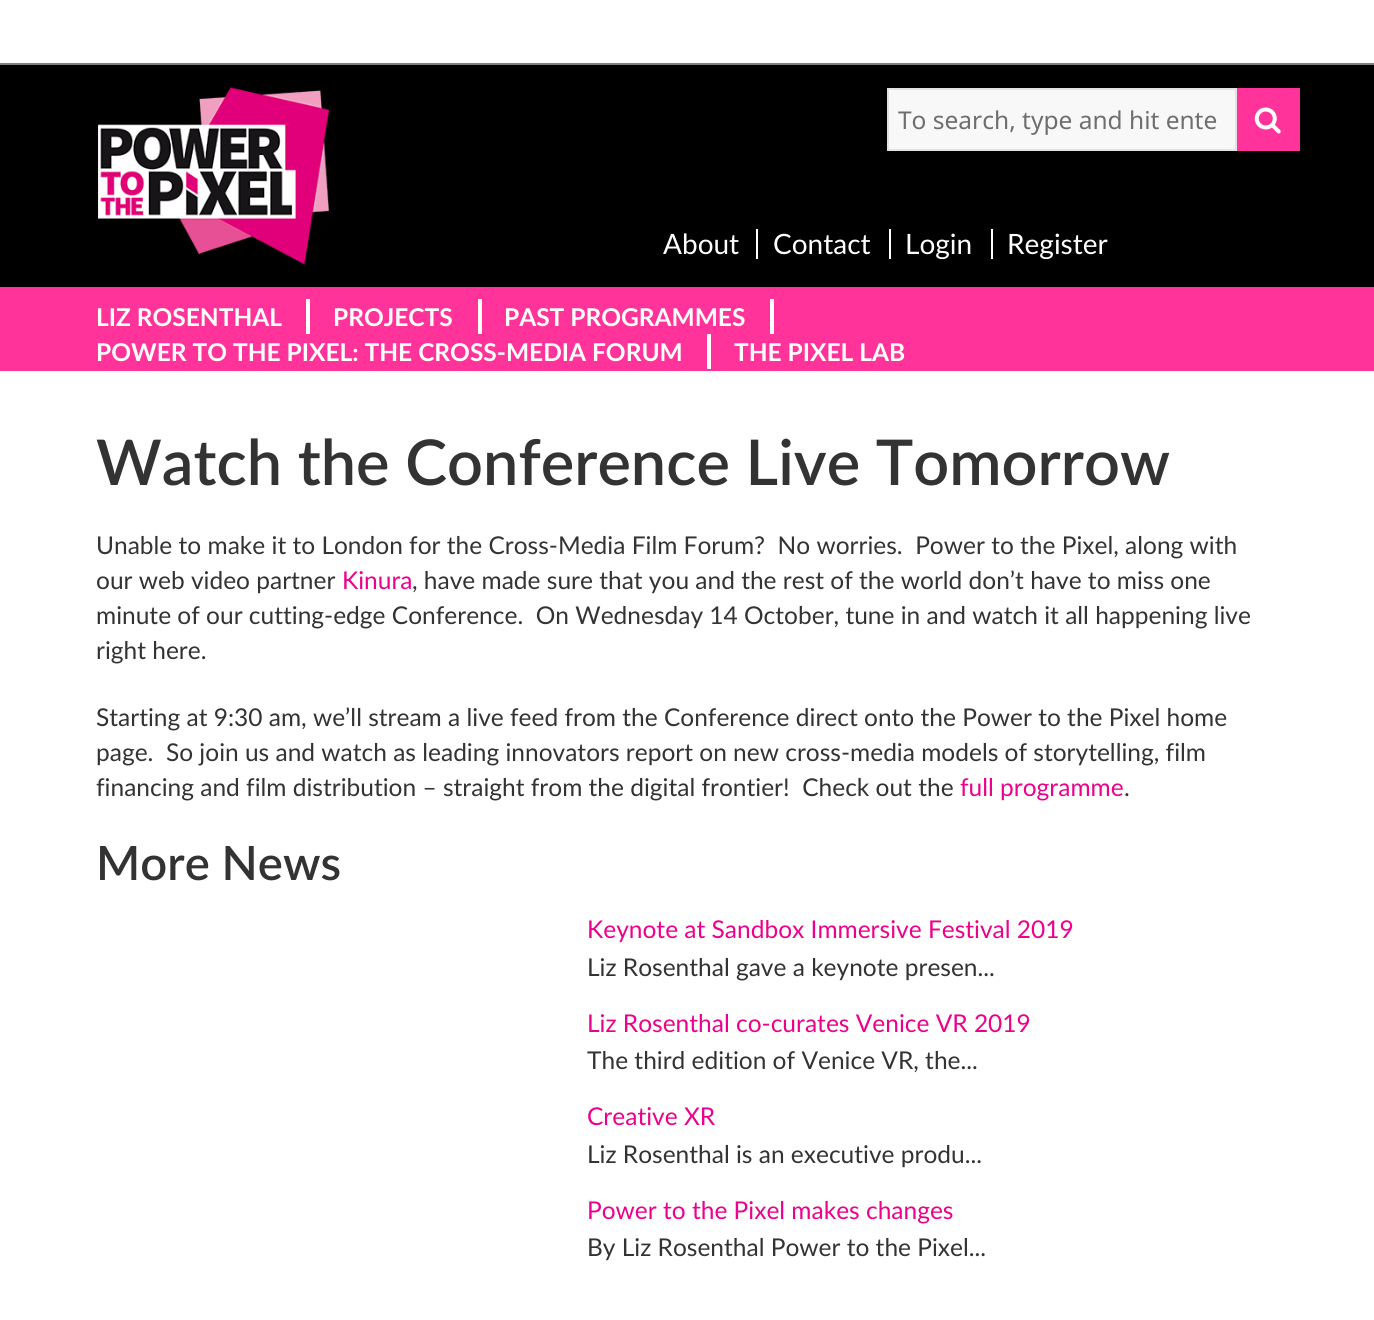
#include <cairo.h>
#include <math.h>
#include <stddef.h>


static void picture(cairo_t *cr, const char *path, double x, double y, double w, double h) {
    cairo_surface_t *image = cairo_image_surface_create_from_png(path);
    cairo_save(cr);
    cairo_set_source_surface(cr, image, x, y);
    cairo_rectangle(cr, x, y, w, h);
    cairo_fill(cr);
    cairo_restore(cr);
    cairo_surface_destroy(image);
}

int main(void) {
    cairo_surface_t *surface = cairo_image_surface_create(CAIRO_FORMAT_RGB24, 1374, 1320);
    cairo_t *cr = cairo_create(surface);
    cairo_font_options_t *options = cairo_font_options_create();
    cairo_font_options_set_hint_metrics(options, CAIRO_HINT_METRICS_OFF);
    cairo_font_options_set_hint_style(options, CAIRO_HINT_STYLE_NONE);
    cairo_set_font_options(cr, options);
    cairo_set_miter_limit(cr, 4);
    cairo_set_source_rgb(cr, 1, 1, 1);
    cairo_paint(cr);
    cairo_set_source_rgb(cr, 0.49, 0.49, 0.49);
    cairo_rectangle(cr, 0, 63, 1374, 2);
    cairo_fill(cr);
    cairo_set_source_rgb(cr, 0, 0, 0);
    cairo_rectangle(cr, 0, 65, 1374, 222);
    cairo_fill(cr);
    picture(cr, "img1.png", 98, 87, 231, 178);
    cairo_set_source_rgb(cr, 0.969, 0.969, 0.969);
    cairo_rectangle(cr, 888, 89, 348, 61);
    cairo_fill_preserve(cr);
    cairo_set_source_rgb(cr, 0.89, 0.89, 0.89);
    cairo_stroke(cr);
    cairo_select_font_face(cr, "Noto Sans", CAIRO_FONT_SLANT_NORMAL, CAIRO_FONT_WEIGHT_NORMAL);
    cairo_set_font_size(cr, 24.5);
    cairo_set_source_rgb(cr, 0.431, 0.431, 0.431);
    cairo_move_to(cr, 898, 129);
    cairo_show_text(cr, "To search, type and hit ente");
    cairo_set_source_rgb(cr, 1, 0.2, 0.6);
    cairo_rectangle(cr, 1237, 88, 63, 63);
    cairo_fill(cr);
    picture(cr, "img2.png", 1254, 107, 27, 27);
    cairo_set_source_rgb(cr, 1, 1, 1);
    cairo_rectangle(cr, 756, 229, 2, 30);
    cairo_fill(cr);
    cairo_select_font_face(cr, "Lato", CAIRO_FONT_SLANT_NORMAL, CAIRO_FONT_WEIGHT_NORMAL);
    cairo_set_font_size(cr, 28);
    cairo_move_to(cr, 663, 254);
    cairo_show_text(cr, "About");
    cairo_rectangle(cr, 889, 229, 2, 30);
    cairo_fill(cr);
    cairo_move_to(cr, 773, 254);
    cairo_show_text(cr, "Contact");
    cairo_rectangle(cr, 991, 229, 2, 30);
    cairo_fill(cr);
    cairo_move_to(cr, 905, 254);
    cairo_show_text(cr, "Login");
    cairo_move_to(cr, 1007, 254);
    cairo_show_text(cr, "Register");
    cairo_set_source_rgb(cr, 1, 0.2, 0.6);
    cairo_rectangle(cr, 0, 287, 1374, 84);
    cairo_fill(cr);
    cairo_set_source_rgb(cr, 1, 1, 1);
    cairo_rectangle(cr, 306, 299, 4, 35);
    cairo_fill(cr);
    cairo_select_font_face(cr, "Lato", CAIRO_FONT_SLANT_NORMAL, CAIRO_FONT_WEIGHT_BOLD);
    cairo_set_font_size(cr, 24.5);
    cairo_move_to(cr, 96, 326);
    cairo_show_text(cr, "LIZ ROSENTHAL");
    cairo_rectangle(cr, 478, 299, 4, 35);
    cairo_fill(cr);
    cairo_move_to(cr, 333, 326);
    cairo_show_text(cr, "PROJECTS");
    cairo_rectangle(cr, 770, 299, 4, 35);
    cairo_fill(cr);
    cairo_move_to(cr, 504, 326);
    cairo_show_text(cr, "PAST PROGRAMMES");
    cairo_rectangle(cr, 707, 334, 4, 35);
    cairo_fill(cr);
    cairo_move_to(cr, 96, 361);
    cairo_show_text(cr, "POWER TO THE PIXEL: THE CROSS-MEDIA FORUM");
    cairo_move_to(cr, 734, 361);
    cairo_show_text(cr, "THE PIXEL LAB");
    cairo_select_font_face(cr, "Lato SemiBold", CAIRO_FONT_SLANT_NORMAL, CAIRO_FONT_WEIGHT_NORMAL);
    cairo_set_font_size(cr, 63);
    cairo_set_source_rgb(cr, 0.2, 0.2, 0.2);
    cairo_move_to(cr, 96, 485);
    cairo_show_text(cr, "Watch the Conference Live Tomorrow");
    cairo_select_font_face(cr, "Lato", CAIRO_FONT_SLANT_NORMAL, CAIRO_FONT_WEIGHT_NORMAL);
    cairo_set_font_size(cr, 24.5);
    cairo_move_to(cr, 96, 554);
    cairo_show_text(cr, "Unable to make it to London for the Cross-Media Film Forum?  No worries.  Power to the Pixel, along with");
    cairo_move_to(cr, 96, 589);
    cairo_show_text(cr, "our web video partner");
    cairo_set_source_rgb(cr, 0.925, 0, 0.549);
    cairo_move_to(cr, 342, 589);
    cairo_show_text(cr, "Kinura");
    cairo_set_source_rgb(cr, 0.2, 0.2, 0.2);
    cairo_move_to(cr, 412, 589);
    cairo_show_text(cr, ", have made sure that you and the rest of the world don’t have to miss one");
    cairo_move_to(cr, 96, 624);
    cairo_show_text(cr, "minute of our cutting-edge Conference.  On Wednesday 14 October, tune in and watch it all happening live");
    cairo_move_to(cr, 96, 659);
    cairo_show_text(cr, "right here.");
    cairo_move_to(cr, 96, 726);
    cairo_show_text(cr, "Starting at 9:30 am, we’ll stream a live feed from the Conference direct onto the Power to the Pixel home");
    cairo_move_to(cr, 96, 761);
    cairo_show_text(cr, "page.  So join us and watch as leading innovators report on new cross-media models of storytelling, film");
    cairo_move_to(cr, 96, 796);
    cairo_show_text(cr, "financing and film distribution – straight from the digital frontier!  Check out the");
    cairo_set_source_rgb(cr, 0.925, 0, 0.549);
    cairo_move_to(cr, 960, 796);
    cairo_show_text(cr, "full programme");
    cairo_set_source_rgb(cr, 0.2, 0.2, 0.2);
    cairo_move_to(cr, 1124, 796);
    cairo_show_text(cr, ".");
    cairo_select_font_face(cr, "Lato SemiBold", CAIRO_FONT_SLANT_NORMAL, CAIRO_FONT_WEIGHT_NORMAL);
    cairo_set_font_size(cr, 47.25);
    cairo_move_to(cr, 96, 880);
    cairo_show_text(cr, "More News");
    cairo_select_font_face(cr, "Lato", CAIRO_FONT_SLANT_NORMAL, CAIRO_FONT_WEIGHT_NORMAL);
    cairo_set_font_size(cr, 24.5);
    cairo_set_source_rgb(cr, 0.925, 0, 0.549);
    cairo_move_to(cr, 587, 938);
    cairo_show_text(cr, "Keynote at Sandbox Immersive Festival 2019");
    cairo_set_source_rgb(cr, 0.2, 0.2, 0.2);
    cairo_move_to(cr, 587, 976);
    cairo_show_text(cr, "Liz Rosenthal gave a keynote presen...");
    cairo_set_source_rgb(cr, 0.925, 0, 0.549);
    cairo_move_to(cr, 587, 1032);
    cairo_show_text(cr, "Liz Rosenthal co-curates Venice VR 2019");
    cairo_set_source_rgb(cr, 0.2, 0.2, 0.2);
    cairo_move_to(cr, 587, 1069);
    cairo_show_text(cr, "The third edition of Venice VR, the...");
    cairo_set_source_rgb(cr, 0.925, 0, 0.549);
    cairo_move_to(cr, 587, 1125);
    cairo_show_text(cr, "Creative XR");
    cairo_set_source_rgb(cr, 0.2, 0.2, 0.2);
    cairo_move_to(cr, 587, 1163);
    cairo_show_text(cr, "Liz Rosenthal is an executive produ...");
    cairo_set_source_rgb(cr, 0.925, 0, 0.549);
    cairo_move_to(cr, 587, 1219);
    cairo_show_text(cr, "Power to the Pixel makes changes");
    cairo_set_source_rgb(cr, 0.2, 0.2, 0.2);
    cairo_move_to(cr, 587, 1256);
    cairo_show_text(cr, "By Liz Rosenthal Power to the Pixel...");
    cairo_surface_write_to_png(surface, "page.png");
    cairo_font_options_destroy(options);
    cairo_destroy(cr);
    cairo_surface_destroy(surface);
    return 0;
}
